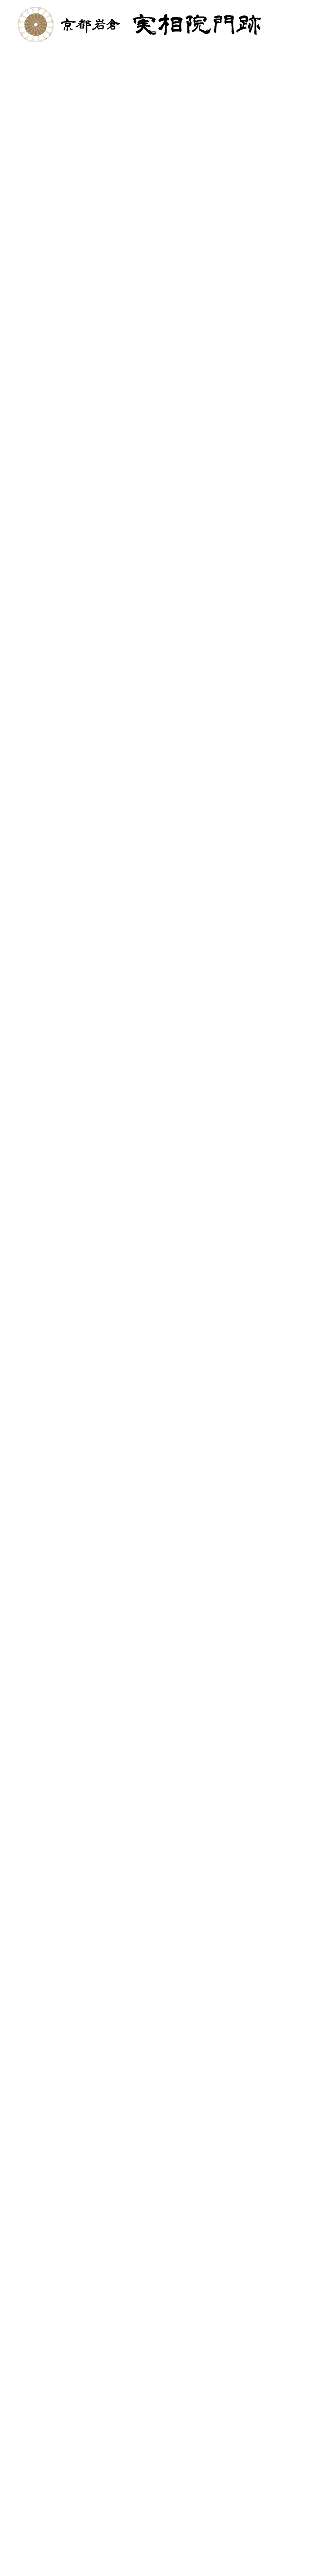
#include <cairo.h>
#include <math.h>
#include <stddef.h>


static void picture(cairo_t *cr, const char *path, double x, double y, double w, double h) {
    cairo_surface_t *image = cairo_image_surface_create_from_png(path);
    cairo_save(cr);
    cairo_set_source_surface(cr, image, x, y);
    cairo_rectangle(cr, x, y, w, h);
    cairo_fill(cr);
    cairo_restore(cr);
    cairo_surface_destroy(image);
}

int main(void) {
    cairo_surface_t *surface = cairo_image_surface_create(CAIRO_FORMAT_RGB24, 326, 2571);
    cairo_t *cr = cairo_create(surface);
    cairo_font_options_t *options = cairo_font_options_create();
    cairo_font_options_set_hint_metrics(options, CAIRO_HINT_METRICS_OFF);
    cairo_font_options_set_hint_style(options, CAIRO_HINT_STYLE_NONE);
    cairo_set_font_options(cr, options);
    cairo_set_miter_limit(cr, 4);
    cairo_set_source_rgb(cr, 1, 1, 1);
    cairo_paint(cr);
    picture(cr, "img1.png", 18, 7, 243, 35);
    cairo_surface_write_to_png(surface, "page.png");
    cairo_font_options_destroy(options);
    cairo_destroy(cr);
    cairo_surface_destroy(surface);
    return 0;
}
